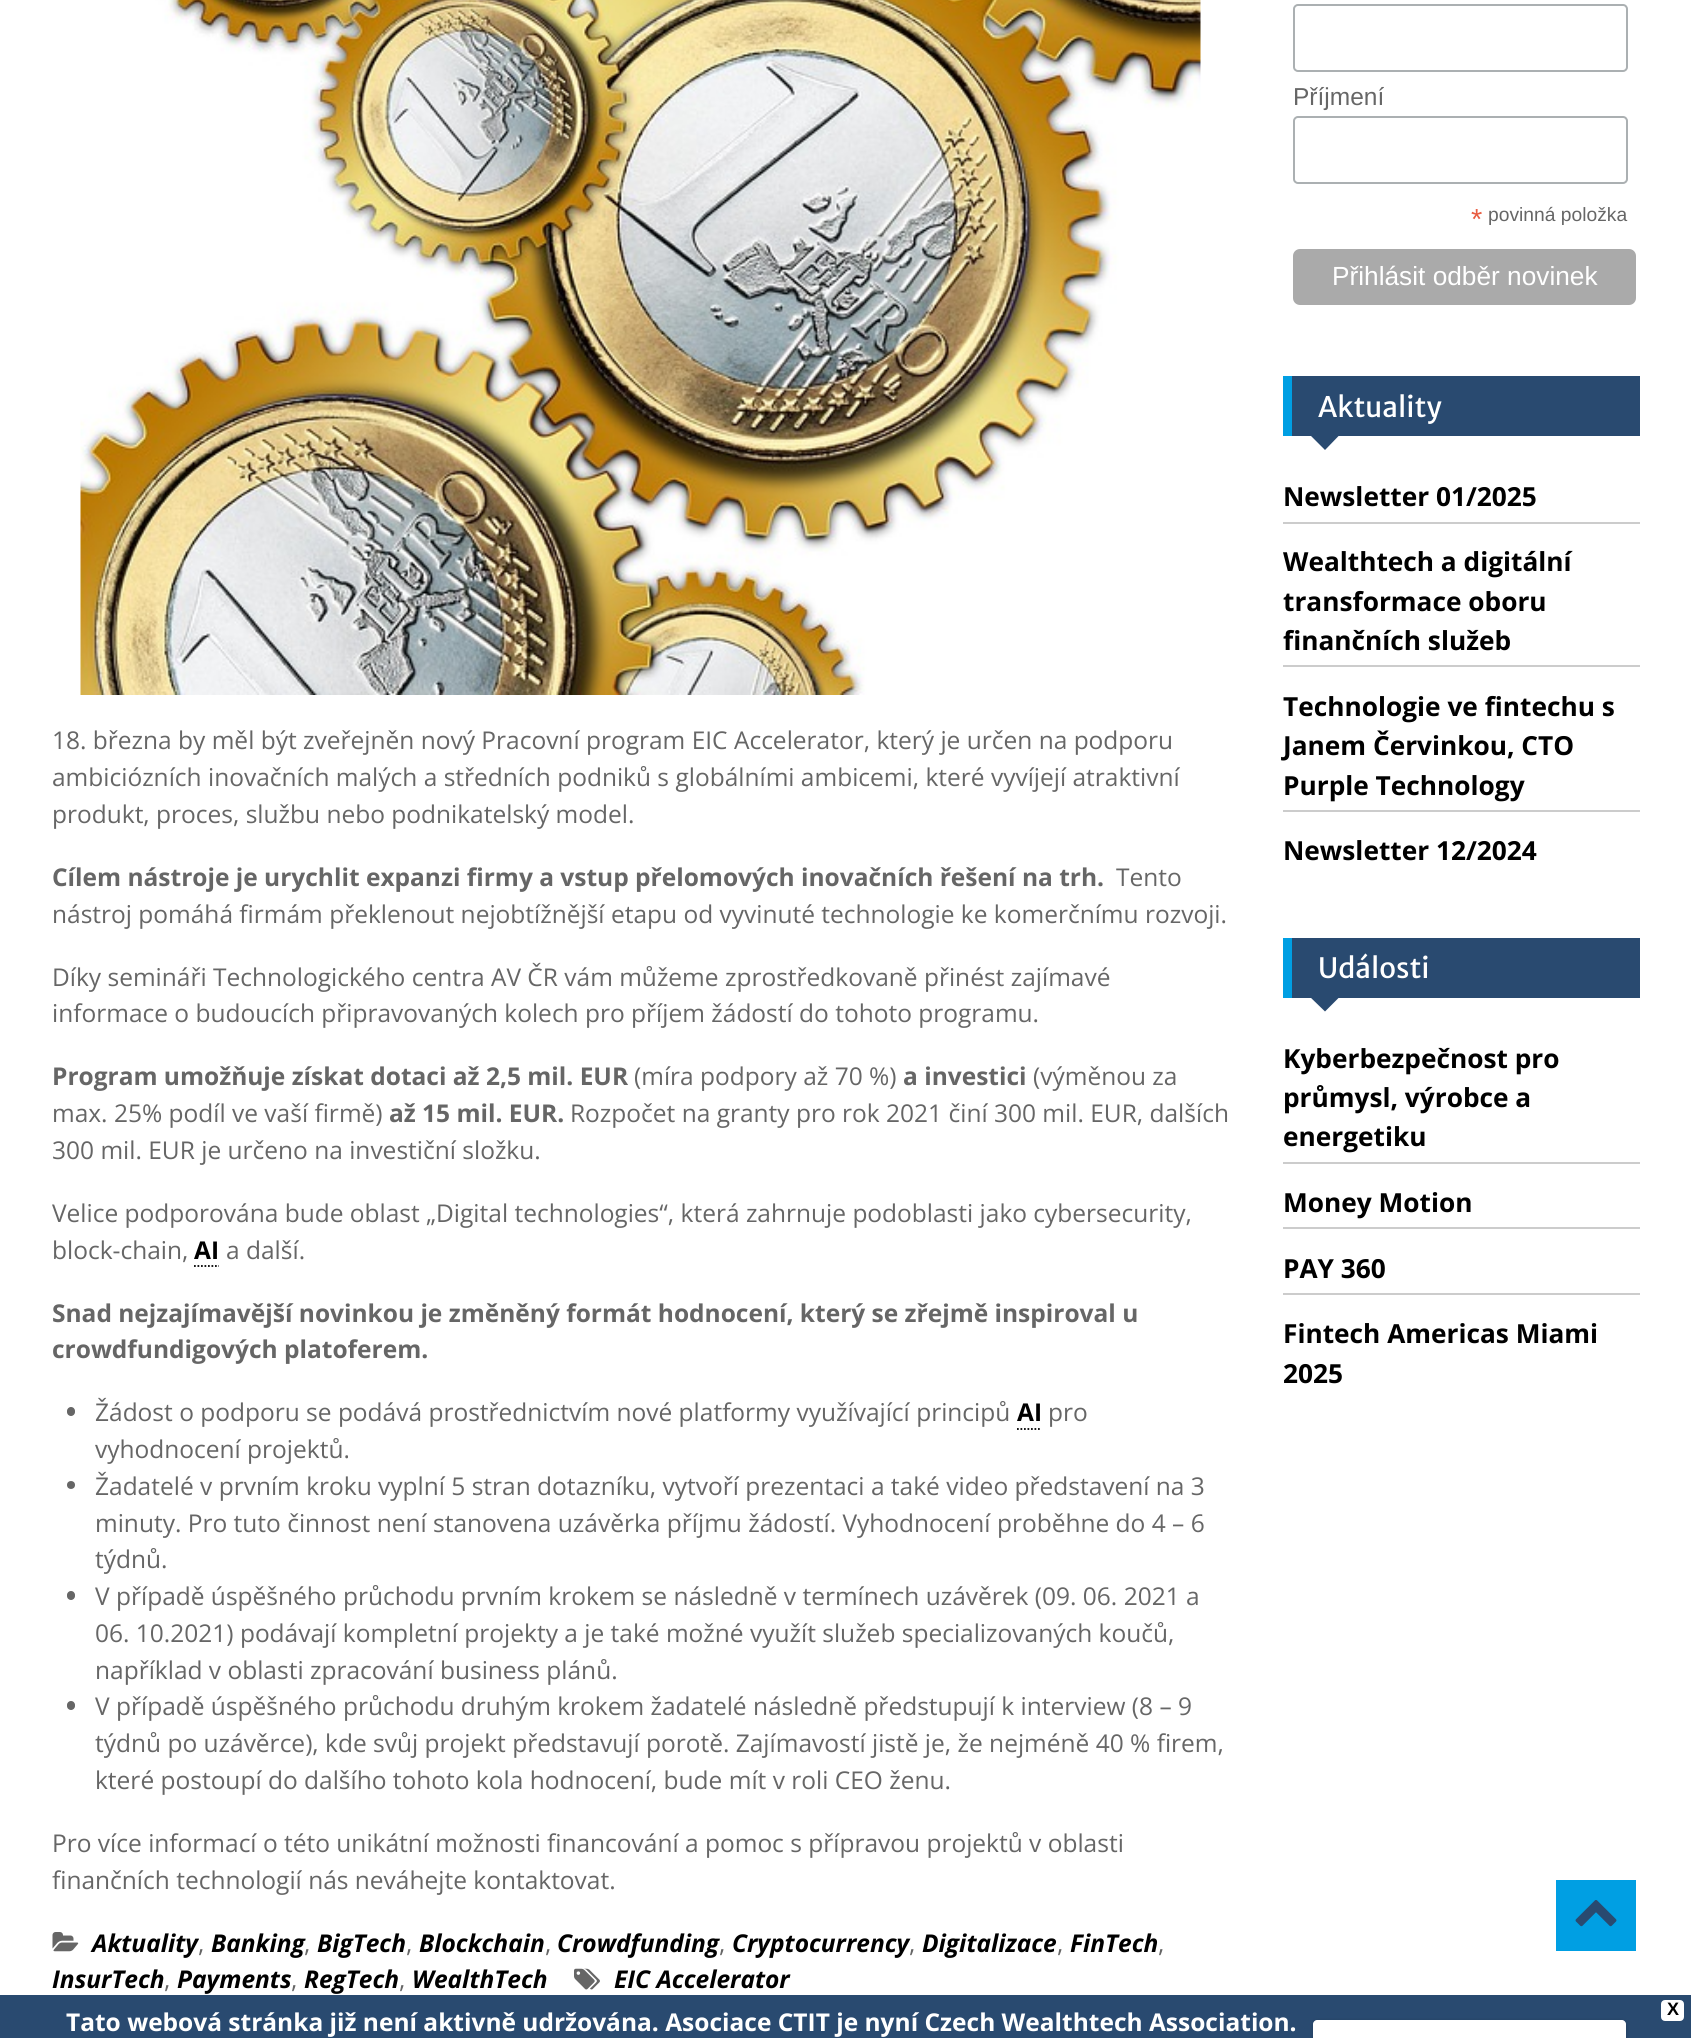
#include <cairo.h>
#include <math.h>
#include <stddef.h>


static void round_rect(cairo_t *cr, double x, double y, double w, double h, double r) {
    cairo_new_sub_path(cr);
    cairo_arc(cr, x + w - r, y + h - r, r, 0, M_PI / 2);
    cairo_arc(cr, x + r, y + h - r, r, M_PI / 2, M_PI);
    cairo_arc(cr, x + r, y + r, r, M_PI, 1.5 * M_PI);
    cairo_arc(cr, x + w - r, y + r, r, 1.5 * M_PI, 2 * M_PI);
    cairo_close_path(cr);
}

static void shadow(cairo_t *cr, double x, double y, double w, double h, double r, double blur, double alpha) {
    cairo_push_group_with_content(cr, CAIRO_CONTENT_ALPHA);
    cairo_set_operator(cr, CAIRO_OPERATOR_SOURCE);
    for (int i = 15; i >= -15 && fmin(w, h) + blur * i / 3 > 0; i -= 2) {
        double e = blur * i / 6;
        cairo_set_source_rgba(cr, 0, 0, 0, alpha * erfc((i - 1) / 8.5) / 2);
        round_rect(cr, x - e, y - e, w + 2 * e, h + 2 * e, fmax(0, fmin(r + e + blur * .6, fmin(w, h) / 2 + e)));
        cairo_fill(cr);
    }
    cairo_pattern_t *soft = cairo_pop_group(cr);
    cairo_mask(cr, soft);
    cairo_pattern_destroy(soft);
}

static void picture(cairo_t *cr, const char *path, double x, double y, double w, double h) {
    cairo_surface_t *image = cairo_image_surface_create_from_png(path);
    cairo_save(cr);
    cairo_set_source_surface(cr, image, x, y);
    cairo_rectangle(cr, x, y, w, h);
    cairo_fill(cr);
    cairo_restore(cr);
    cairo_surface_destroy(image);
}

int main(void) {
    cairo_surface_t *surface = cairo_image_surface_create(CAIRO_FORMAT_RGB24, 1691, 2038);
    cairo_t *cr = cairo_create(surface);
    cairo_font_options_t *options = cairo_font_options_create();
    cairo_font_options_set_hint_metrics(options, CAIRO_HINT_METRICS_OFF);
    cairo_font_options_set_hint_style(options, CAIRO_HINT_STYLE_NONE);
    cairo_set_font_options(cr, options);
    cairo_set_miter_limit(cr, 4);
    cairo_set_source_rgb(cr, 1, 1, 1);
    cairo_paint(cr);
    picture(cr, "img1.png", 80, 0, 1121, 695);
    cairo_select_font_face(cr, "Open Sans", CAIRO_FONT_SLANT_NORMAL, CAIRO_FONT_WEIGHT_NORMAL);
    cairo_set_font_size(cr, 24.5);
    cairo_set_source_rgb(cr, 0.4, 0.4, 0.4);
    cairo_move_to(cr, 52, 749);
    cairo_show_text(cr, "18. března by měl být zveřejněn nový Pracovní program EIC Accelerator, který je určen na podporu");
    cairo_move_to(cr, 52, 786);
    cairo_show_text(cr, "ambiciózních inovačních malých a středních podniků s globálními ambicemi, které vyvíjejí atraktivní");
    cairo_move_to(cr, 52, 823);
    cairo_show_text(cr, "produkt, proces, službu nebo podnikatelský model.");
    cairo_select_font_face(cr, "Open Sans", CAIRO_FONT_SLANT_NORMAL, CAIRO_FONT_WEIGHT_BOLD);
    cairo_move_to(cr, 52, 886);
    cairo_show_text(cr, "Cílem nástroje je urychlit expanzi firmy a vstup přelomových inovačních řešení na trh.");
    cairo_select_font_face(cr, "Open Sans", CAIRO_FONT_SLANT_NORMAL, CAIRO_FONT_WEIGHT_NORMAL);
    cairo_move_to(cr, 1116, 886);
    cairo_show_text(cr, "Tento");
    cairo_move_to(cr, 52, 923);
    cairo_show_text(cr, "nástroj pomáhá firmám překlenout nejobtížnější etapu od vyvinuté technologie ke komerčnímu rozvoji.");
    cairo_move_to(cr, 52, 986);
    cairo_show_text(cr, "Díky semináři Technologického centra AV ČR vám můžeme zprostředkovaně přinést zajímavé");
    cairo_move_to(cr, 52, 1022);
    cairo_show_text(cr, "informace o budoucích připravovaných kolech pro příjem žádostí do tohoto programu.");
    cairo_select_font_face(cr, "Open Sans", CAIRO_FONT_SLANT_NORMAL, CAIRO_FONT_WEIGHT_BOLD);
    cairo_move_to(cr, 52, 1085);
    cairo_show_text(cr, "Program umožňuje získat dotaci až 2,5 mil. EUR");
    cairo_select_font_face(cr, "Open Sans", CAIRO_FONT_SLANT_NORMAL, CAIRO_FONT_WEIGHT_NORMAL);
    cairo_move_to(cr, 634, 1085);
    cairo_show_text(cr, "(míra podpory až 70 %)");
    cairo_select_font_face(cr, "Open Sans", CAIRO_FONT_SLANT_NORMAL, CAIRO_FONT_WEIGHT_BOLD);
    cairo_move_to(cr, 903, 1085);
    cairo_show_text(cr, "a investici");
    cairo_select_font_face(cr, "Open Sans", CAIRO_FONT_SLANT_NORMAL, CAIRO_FONT_WEIGHT_NORMAL);
    cairo_move_to(cr, 1033, 1085);
    cairo_show_text(cr, "(výměnou za");
    cairo_move_to(cr, 52, 1122);
    cairo_show_text(cr, "max. 25% podíl ve vaší firmě)");
    cairo_select_font_face(cr, "Open Sans", CAIRO_FONT_SLANT_NORMAL, CAIRO_FONT_WEIGHT_BOLD);
    cairo_move_to(cr, 389, 1122);
    cairo_show_text(cr, "až 15 mil. EUR.");
    cairo_select_font_face(cr, "Open Sans", CAIRO_FONT_SLANT_NORMAL, CAIRO_FONT_WEIGHT_NORMAL);
    cairo_move_to(cr, 570, 1122);
    cairo_show_text(cr, "Rozpočet na granty pro rok 2021 činí 300 mil. EUR, dalších");
    cairo_move_to(cr, 52, 1159);
    cairo_show_text(cr, "300 mil. EUR je určeno na investiční složku.");
    cairo_move_to(cr, 52, 1222);
    cairo_show_text(cr, "Velice podporována bude oblast „Digital technologies“, která zahrnuje podoblasti jako cybersecurity,");
    cairo_move_to(cr, 52, 1259);
    cairo_show_text(cr, "block-chain,");
    cairo_select_font_face(cr, "Open Sans", CAIRO_FONT_SLANT_NORMAL, CAIRO_FONT_WEIGHT_BOLD);
    cairo_set_source_rgb(cr, 0, 0, 0);
    cairo_move_to(cr, 194, 1259);
    cairo_show_text(cr, "AI");
    cairo_new_path(cr);
    cairo_move_to(cr, 194, 1266);
    cairo_line_to(cr, 219, 1266);
    cairo_set_line_width(cr, 1.8);
    cairo_set_dash(cr, (double[]){1.75, 1.75}, 2, 0);
    cairo_stroke(cr);
    cairo_select_font_face(cr, "Open Sans", CAIRO_FONT_SLANT_NORMAL, CAIRO_FONT_WEIGHT_NORMAL);
    cairo_set_source_rgb(cr, 0.4, 0.4, 0.4);
    cairo_move_to(cr, 226, 1259);
    cairo_show_text(cr, "a další.");
    cairo_select_font_face(cr, "Open Sans", CAIRO_FONT_SLANT_NORMAL, CAIRO_FONT_WEIGHT_BOLD);
    cairo_move_to(cr, 52, 1322);
    cairo_show_text(cr, "Snad nejzajímavější novinkou je změněný formát hodnocení, který se zřejmě inspiroval u");
    cairo_move_to(cr, 52, 1358);
    cairo_show_text(cr, "crowdfundigových platoferem.");
    round_rect(cr, 67, 1407, 8, 9, 4);
    cairo_fill(cr);
    cairo_select_font_face(cr, "Open Sans", CAIRO_FONT_SLANT_NORMAL, CAIRO_FONT_WEIGHT_NORMAL);
    cairo_move_to(cr, 95, 1421);
    cairo_show_text(cr, "Žádost o podporu se podává prostřednictvím nové platformy využívající principů");
    cairo_select_font_face(cr, "Open Sans", CAIRO_FONT_SLANT_NORMAL, CAIRO_FONT_WEIGHT_BOLD);
    cairo_set_source_rgb(cr, 0, 0, 0);
    cairo_move_to(cr, 1017, 1421);
    cairo_show_text(cr, "AI");
    cairo_new_path(cr);
    cairo_move_to(cr, 1017, 1429);
    cairo_line_to(cr, 1041, 1429);
    cairo_stroke(cr);
    cairo_select_font_face(cr, "Open Sans", CAIRO_FONT_SLANT_NORMAL, CAIRO_FONT_WEIGHT_NORMAL);
    cairo_set_source_rgb(cr, 0.4, 0.4, 0.4);
    cairo_move_to(cr, 1048, 1421);
    cairo_show_text(cr, "pro");
    cairo_move_to(cr, 95, 1458);
    cairo_show_text(cr, "vyhodnocení projektů.");
    cairo_new_path(cr);
    cairo_arc(cr, 71, 1485, 4, 0, 2 * M_PI);
    cairo_fill(cr);
    cairo_move_to(cr, 95, 1495);
    cairo_show_text(cr, "Žadatelé v prvním kroku vyplní 5 stran dotazníku, vytvoří prezentaci a také video představení na 3");
    cairo_move_to(cr, 95, 1532);
    cairo_show_text(cr, "minuty. Pro tuto činnost není stanovena uzávěrka příjmu žádostí. Vyhodnocení proběhne do 4 – 6");
    cairo_move_to(cr, 95, 1568);
    cairo_show_text(cr, "týdnů.");
    round_rect(cr, 67, 1591, 8, 9, 4);
    cairo_fill(cr);
    cairo_move_to(cr, 95, 1605);
    cairo_show_text(cr, "V případě úspěšného průchodu prvním krokem se následně v termínech uzávěrek (09. 06. 2021 a");
    cairo_move_to(cr, 95, 1642);
    cairo_show_text(cr, "06. 10.2021) podávají kompletní projekty a je také možné využít služeb specializovaných koučů,");
    cairo_move_to(cr, 95, 1679);
    cairo_show_text(cr, "například v oblasti zpracování business plánů.");
    round_rect(cr, 67, 1701, 8, 9, 4);
    cairo_fill(cr);
    cairo_move_to(cr, 95, 1715);
    cairo_show_text(cr, "V případě úspěšného průchodu druhým krokem žadatelé následně předstupují k interview (8 – 9");
    cairo_move_to(cr, 95, 1752);
    cairo_show_text(cr, "týdnů po uzávěrce), kde svůj projekt představují porotě. Zajímavostí jistě je, že nejméně 40 % firem,");
    cairo_move_to(cr, 95, 1789);
    cairo_show_text(cr, "které postoupí do dalšího tohoto kola hodnocení, bude mít v roli CEO ženu.");
    cairo_move_to(cr, 52, 1852);
    cairo_show_text(cr, "Pro více informací o této unikátní možnosti financování a pomoc s přípravou projektů v oblasti");
    cairo_move_to(cr, 52, 1889);
    cairo_show_text(cr, "finančních technologií nás neváhejte kontaktovat.");
    picture(cr, "img2.png", 52, 1932, 27, 20);
    cairo_select_font_face(cr, "Open Sans", CAIRO_FONT_SLANT_ITALIC, CAIRO_FONT_WEIGHT_BOLD);
    cairo_set_source_rgb(cr, 0, 0, 0);
    cairo_move_to(cr, 92, 1952);
    cairo_show_text(cr, "Aktuality");
    cairo_select_font_face(cr, "Open Sans", CAIRO_FONT_SLANT_NORMAL, CAIRO_FONT_WEIGHT_NORMAL);
    cairo_set_source_rgb(cr, 0.4, 0.4, 0.4);
    cairo_move_to(cr, 198, 1952);
    cairo_show_text(cr, ",");
    cairo_select_font_face(cr, "Open Sans", CAIRO_FONT_SLANT_ITALIC, CAIRO_FONT_WEIGHT_BOLD);
    cairo_set_source_rgb(cr, 0, 0, 0);
    cairo_move_to(cr, 211, 1952);
    cairo_show_text(cr, "Banking");
    cairo_select_font_face(cr, "Open Sans", CAIRO_FONT_SLANT_NORMAL, CAIRO_FONT_WEIGHT_NORMAL);
    cairo_set_source_rgb(cr, 0.4, 0.4, 0.4);
    cairo_move_to(cr, 304, 1952);
    cairo_show_text(cr, ",");
    cairo_select_font_face(cr, "Open Sans", CAIRO_FONT_SLANT_ITALIC, CAIRO_FONT_WEIGHT_BOLD);
    cairo_set_source_rgb(cr, 0, 0, 0);
    cairo_move_to(cr, 317, 1952);
    cairo_show_text(cr, "BigTech");
    cairo_select_font_face(cr, "Open Sans", CAIRO_FONT_SLANT_NORMAL, CAIRO_FONT_WEIGHT_NORMAL);
    cairo_set_source_rgb(cr, 0.4, 0.4, 0.4);
    cairo_move_to(cr, 406, 1952);
    cairo_show_text(cr, ",");
    cairo_select_font_face(cr, "Open Sans", CAIRO_FONT_SLANT_ITALIC, CAIRO_FONT_WEIGHT_BOLD);
    cairo_set_source_rgb(cr, 0, 0, 0);
    cairo_move_to(cr, 419, 1952);
    cairo_show_text(cr, "Blockchain");
    cairo_select_font_face(cr, "Open Sans", CAIRO_FONT_SLANT_NORMAL, CAIRO_FONT_WEIGHT_NORMAL);
    cairo_set_source_rgb(cr, 0.4, 0.4, 0.4);
    cairo_move_to(cr, 545, 1952);
    cairo_show_text(cr, ",");
    cairo_select_font_face(cr, "Open Sans", CAIRO_FONT_SLANT_ITALIC, CAIRO_FONT_WEIGHT_BOLD);
    cairo_set_source_rgb(cr, 0, 0, 0);
    cairo_move_to(cr, 557, 1952);
    cairo_show_text(cr, "Crowdfunding");
    cairo_select_font_face(cr, "Open Sans", CAIRO_FONT_SLANT_NORMAL, CAIRO_FONT_WEIGHT_NORMAL);
    cairo_set_source_rgb(cr, 0.4, 0.4, 0.4);
    cairo_move_to(cr, 719, 1952);
    cairo_show_text(cr, ",");
    cairo_select_font_face(cr, "Open Sans", CAIRO_FONT_SLANT_ITALIC, CAIRO_FONT_WEIGHT_BOLD);
    cairo_set_source_rgb(cr, 0, 0, 0);
    cairo_move_to(cr, 732, 1952);
    cairo_show_text(cr, "Cryptocurrency");
    cairo_select_font_face(cr, "Open Sans", CAIRO_FONT_SLANT_NORMAL, CAIRO_FONT_WEIGHT_NORMAL);
    cairo_set_source_rgb(cr, 0.4, 0.4, 0.4);
    cairo_move_to(cr, 909, 1952);
    cairo_show_text(cr, ",");
    cairo_select_font_face(cr, "Open Sans", CAIRO_FONT_SLANT_ITALIC, CAIRO_FONT_WEIGHT_BOLD);
    cairo_set_source_rgb(cr, 0, 0, 0);
    cairo_move_to(cr, 922, 1952);
    cairo_show_text(cr, "Digitalizace");
    cairo_select_font_face(cr, "Open Sans", CAIRO_FONT_SLANT_NORMAL, CAIRO_FONT_WEIGHT_NORMAL);
    cairo_set_source_rgb(cr, 0.4, 0.4, 0.4);
    cairo_move_to(cr, 1057, 1952);
    cairo_show_text(cr, ",");
    cairo_select_font_face(cr, "Open Sans", CAIRO_FONT_SLANT_ITALIC, CAIRO_FONT_WEIGHT_BOLD);
    cairo_set_source_rgb(cr, 0, 0, 0);
    cairo_move_to(cr, 1070, 1952);
    cairo_show_text(cr, "FinTech");
    cairo_select_font_face(cr, "Open Sans", CAIRO_FONT_SLANT_NORMAL, CAIRO_FONT_WEIGHT_NORMAL);
    cairo_set_source_rgb(cr, 0.4, 0.4, 0.4);
    cairo_move_to(cr, 1158, 1952);
    cairo_show_text(cr, ",");
    cairo_select_font_face(cr, "Open Sans", CAIRO_FONT_SLANT_ITALIC, CAIRO_FONT_WEIGHT_BOLD);
    cairo_set_source_rgb(cr, 0, 0, 0);
    cairo_move_to(cr, 52, 1988);
    cairo_show_text(cr, "InsurTech");
    cairo_select_font_face(cr, "Open Sans", CAIRO_FONT_SLANT_NORMAL, CAIRO_FONT_WEIGHT_NORMAL);
    cairo_set_source_rgb(cr, 0.4, 0.4, 0.4);
    cairo_move_to(cr, 164, 1988);
    cairo_show_text(cr, ",");
    cairo_select_font_face(cr, "Open Sans", CAIRO_FONT_SLANT_ITALIC, CAIRO_FONT_WEIGHT_BOLD);
    cairo_set_source_rgb(cr, 0, 0, 0);
    cairo_move_to(cr, 177, 1988);
    cairo_show_text(cr, "Payments");
    cairo_select_font_face(cr, "Open Sans", CAIRO_FONT_SLANT_NORMAL, CAIRO_FONT_WEIGHT_NORMAL);
    cairo_set_source_rgb(cr, 0.4, 0.4, 0.4);
    cairo_move_to(cr, 291, 1988);
    cairo_show_text(cr, ",");
    cairo_select_font_face(cr, "Open Sans", CAIRO_FONT_SLANT_ITALIC, CAIRO_FONT_WEIGHT_BOLD);
    cairo_set_source_rgb(cr, 0, 0, 0);
    cairo_move_to(cr, 304, 1988);
    cairo_show_text(cr, "RegTech");
    cairo_select_font_face(cr, "Open Sans", CAIRO_FONT_SLANT_NORMAL, CAIRO_FONT_WEIGHT_NORMAL);
    cairo_set_source_rgb(cr, 0.4, 0.4, 0.4);
    cairo_move_to(cr, 399, 1988);
    cairo_show_text(cr, ",");
    cairo_select_font_face(cr, "Open Sans", CAIRO_FONT_SLANT_ITALIC, CAIRO_FONT_WEIGHT_BOLD);
    cairo_set_source_rgb(cr, 0, 0, 0);
    cairo_move_to(cr, 412, 1988);
    cairo_show_text(cr, "WealthTech");
    picture(cr, "img3.png", 574, 1968, 26, 22);
    cairo_move_to(cr, 614, 1988);
    cairo_show_text(cr, "EIC Accelerator");
    round_rect(cr, 1294, 5, 333, 66, 4);
    cairo_set_source_rgb(cr, 0.671, 0.69, 0.698);
    cairo_set_line_width(cr, 2);
    cairo_set_dash(cr, NULL, 0, 0);
    cairo_stroke(cr);
    cairo_select_font_face(cr, "Liberation Sans", CAIRO_FONT_SLANT_NORMAL, CAIRO_FONT_WEIGHT_NORMAL);
    cairo_set_source_rgb(cr, 0.4, 0.4, 0.4);
    cairo_move_to(cr, 1293, 105);
    cairo_show_text(cr, "Příjmení");
    round_rect(cr, 1294, 117, 333, 66, 4);
    cairo_set_source_rgb(cr, 0.671, 0.69, 0.698);
    cairo_stroke(cr);
    cairo_set_font_size(cr, 29);
    cairo_set_source_rgb(cr, 0.91, 0.361, 0.255);
    cairo_move_to(cr, 1471, 229);
    cairo_show_text(cr, "*");
    cairo_set_font_size(cr, 19.25);
    cairo_set_source_rgb(cr, 0.4, 0.4, 0.4);
    cairo_move_to(cr, 1488, 221);
    cairo_show_text(cr, "povinná položka");
    cairo_set_source_rgb(cr, 0.667, 0.667, 0.667);
    round_rect(cr, 1293, 249, 343, 56, 7);
    cairo_fill(cr);
    cairo_set_font_size(cr, 26.25);
    cairo_set_source_rgb(cr, 1, 1, 1);
    cairo_move_to(cr, 1332, 285);
    cairo_show_text(cr, "Přihlásit odběr novinek");
    cairo_set_source_rgb(cr, 0.161, 0.29, 0.439);
    cairo_rectangle(cr, 1292, 376, 348, 60);
    cairo_fill(cr);
    cairo_set_source_rgb(cr, 0, 0.624, 0.89);
    cairo_rectangle(cr, 1283, 376, 9, 60);
    cairo_fill(cr);
    cairo_select_font_face(cr, "Merriweather Sans", CAIRO_FONT_SLANT_NORMAL, CAIRO_FONT_WEIGHT_NORMAL);
    cairo_set_font_size(cr, 28);
    cairo_set_source_rgb(cr, 1, 1, 1);
    cairo_move_to(cr, 1318, 417);
    cairo_show_text(cr, "Aktuality");
    cairo_set_source_rgb(cr, 0.161, 0.29, 0.439);
    cairo_new_path(cr);
    cairo_move_to(cr, 1309, 434);
    cairo_line_to(cr, 1340.5, 434);
    cairo_line_to(cr, 1325, 450);
    cairo_close_path(cr);
    cairo_fill(cr);
    cairo_set_source_rgb(cr, 0.8, 0.8, 0.8);
    cairo_rectangle(cr, 1283, 522, 357, 2);
    cairo_fill(cr);
    cairo_select_font_face(cr, "Open Sans", CAIRO_FONT_SLANT_NORMAL, CAIRO_FONT_WEIGHT_BOLD);
    cairo_set_font_size(cr, 26.25);
    cairo_set_source_rgb(cr, 0, 0, 0);
    cairo_move_to(cr, 1283, 506);
    cairo_show_text(cr, "Newsletter 01/2025");
    cairo_set_source_rgb(cr, 0.8, 0.8, 0.8);
    cairo_rectangle(cr, 1283, 665, 357, 2);
    cairo_fill(cr);
    cairo_set_source_rgb(cr, 0, 0, 0);
    cairo_move_to(cr, 1283, 571);
    cairo_show_text(cr, "Wealthtech a digitální");
    cairo_move_to(cr, 1283, 611);
    cairo_show_text(cr, "transformace oboru");
    cairo_move_to(cr, 1283, 650);
    cairo_show_text(cr, "finančních služeb");
    cairo_set_source_rgb(cr, 0.8, 0.8, 0.8);
    cairo_rectangle(cr, 1283, 810, 357, 2);
    cairo_fill(cr);
    cairo_set_source_rgb(cr, 0, 0, 0);
    cairo_move_to(cr, 1283, 716);
    cairo_show_text(cr, "Technologie ve fintechu s");
    cairo_move_to(cr, 1283, 755);
    cairo_show_text(cr, "Janem Červinkou, CTO");
    cairo_move_to(cr, 1283, 795);
    cairo_show_text(cr, "Purple Technology");
    cairo_move_to(cr, 1283, 860);
    cairo_show_text(cr, "Newsletter 12/2024");
    cairo_set_source_rgb(cr, 0.161, 0.29, 0.439);
    cairo_rectangle(cr, 1292, 938, 348, 60);
    cairo_fill(cr);
    cairo_set_source_rgb(cr, 0, 0.624, 0.89);
    cairo_rectangle(cr, 1283, 938, 9, 60);
    cairo_fill(cr);
    cairo_select_font_face(cr, "Merriweather Sans", CAIRO_FONT_SLANT_NORMAL, CAIRO_FONT_WEIGHT_NORMAL);
    cairo_set_font_size(cr, 28);
    cairo_set_source_rgb(cr, 1, 1, 1);
    cairo_move_to(cr, 1318, 978);
    cairo_show_text(cr, "Události");
    cairo_set_source_rgb(cr, 0.161, 0.29, 0.439);
    cairo_new_path(cr);
    cairo_move_to(cr, 1309, 996);
    cairo_line_to(cr, 1340.5, 996);
    cairo_line_to(cr, 1325, 1011.5);
    cairo_close_path(cr);
    cairo_fill(cr);
    cairo_set_source_rgb(cr, 0.8, 0.8, 0.8);
    cairo_rectangle(cr, 1283, 1162, 357, 2);
    cairo_fill(cr);
    cairo_select_font_face(cr, "Open Sans", CAIRO_FONT_SLANT_NORMAL, CAIRO_FONT_WEIGHT_BOLD);
    cairo_set_font_size(cr, 26.25);
    cairo_set_source_rgb(cr, 0, 0, 0);
    cairo_move_to(cr, 1283, 1068);
    cairo_show_text(cr, "Kyberbezpečnost pro");
    cairo_move_to(cr, 1283, 1107);
    cairo_show_text(cr, "průmysl, výrobce a");
    cairo_move_to(cr, 1283, 1146);
    cairo_show_text(cr, "energetiku");
    cairo_set_source_rgb(cr, 0.8, 0.8, 0.8);
    cairo_rectangle(cr, 1283, 1227, 357, 2);
    cairo_fill(cr);
    cairo_set_source_rgb(cr, 0, 0, 0);
    cairo_move_to(cr, 1283, 1212);
    cairo_show_text(cr, "Money Motion");
    cairo_set_source_rgb(cr, 0.8, 0.8, 0.8);
    cairo_rectangle(cr, 1283, 1293, 357, 2);
    cairo_fill(cr);
    cairo_set_source_rgb(cr, 0, 0, 0);
    cairo_move_to(cr, 1283, 1278);
    cairo_show_text(cr, "PAY 360");
    cairo_move_to(cr, 1283, 1343);
    cairo_show_text(cr, "Fintech Americas Miami");
    cairo_move_to(cr, 1283, 1383);
    cairo_show_text(cr, "2025");
    cairo_set_source_rgb(cr, 0, 0.624, 0.89);
    cairo_rectangle(cr, 1556, 1880, 80, 71);
    cairo_fill(cr);
    picture(cr, "img4.png", 1575, 1900, 42, 27);
    cairo_set_source_rgb(cr, 0.161, 0.29, 0.439);
    cairo_rectangle(cr, 0, 1995, 1691, 43);
    cairo_fill(cr);
    cairo_set_source_rgb(cr, 1, 1, 1);
    round_rect(cr, 1662, 2001, 21, 19, 3);
    cairo_fill_preserve(cr);
    cairo_stroke(cr);
    cairo_select_font_face(cr, "Liberation Sans", CAIRO_FONT_SLANT_NORMAL, CAIRO_FONT_WEIGHT_BOLD);
    cairo_set_font_size(cr, 18);
    cairo_set_source_rgb(cr, 0, 0, 0);
    cairo_move_to(cr, 1667, 2015);
    cairo_show_text(cr, "X");
    cairo_select_font_face(cr, "Open Sans", CAIRO_FONT_SLANT_NORMAL, CAIRO_FONT_WEIGHT_BOLD);
    cairo_set_font_size(cr, 24.5);
    cairo_set_source_rgb(cr, 1, 1, 1);
    cairo_move_to(cr, 66, 2031);
    cairo_show_text(cr, "Tato webová stránka již není aktivně udržována. Asociace CTIT je nyní Czech Wealthtech Association.");
    cairo_set_source_rgb(cr, 0, 0, 0);
    shadow(cr, 1313, 2021, 313, 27, 4, 2, 0.2);
    cairo_set_source_rgb(cr, 1, 1, 1);
    cairo_new_path(cr);
    cairo_move_to(cr, 1317, 2020);
    cairo_line_to(cr, 1622, 2020);
    cairo_curve_to(cr, 1624, 2020, 1626, 2022, 1626, 2024);
    cairo_line_to(cr, 1626, 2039);
    cairo_line_to(cr, 1313, 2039);
    cairo_line_to(cr, 1313, 2024);
    cairo_curve_to(cr, 1313, 2022, 1315, 2020, 1317, 2020);
    cairo_close_path(cr);
    cairo_fill(cr);
    cairo_surface_write_to_png(surface, "page.png");
    cairo_font_options_destroy(options);
    cairo_destroy(cr);
    cairo_surface_destroy(surface);
    return 0;
}
